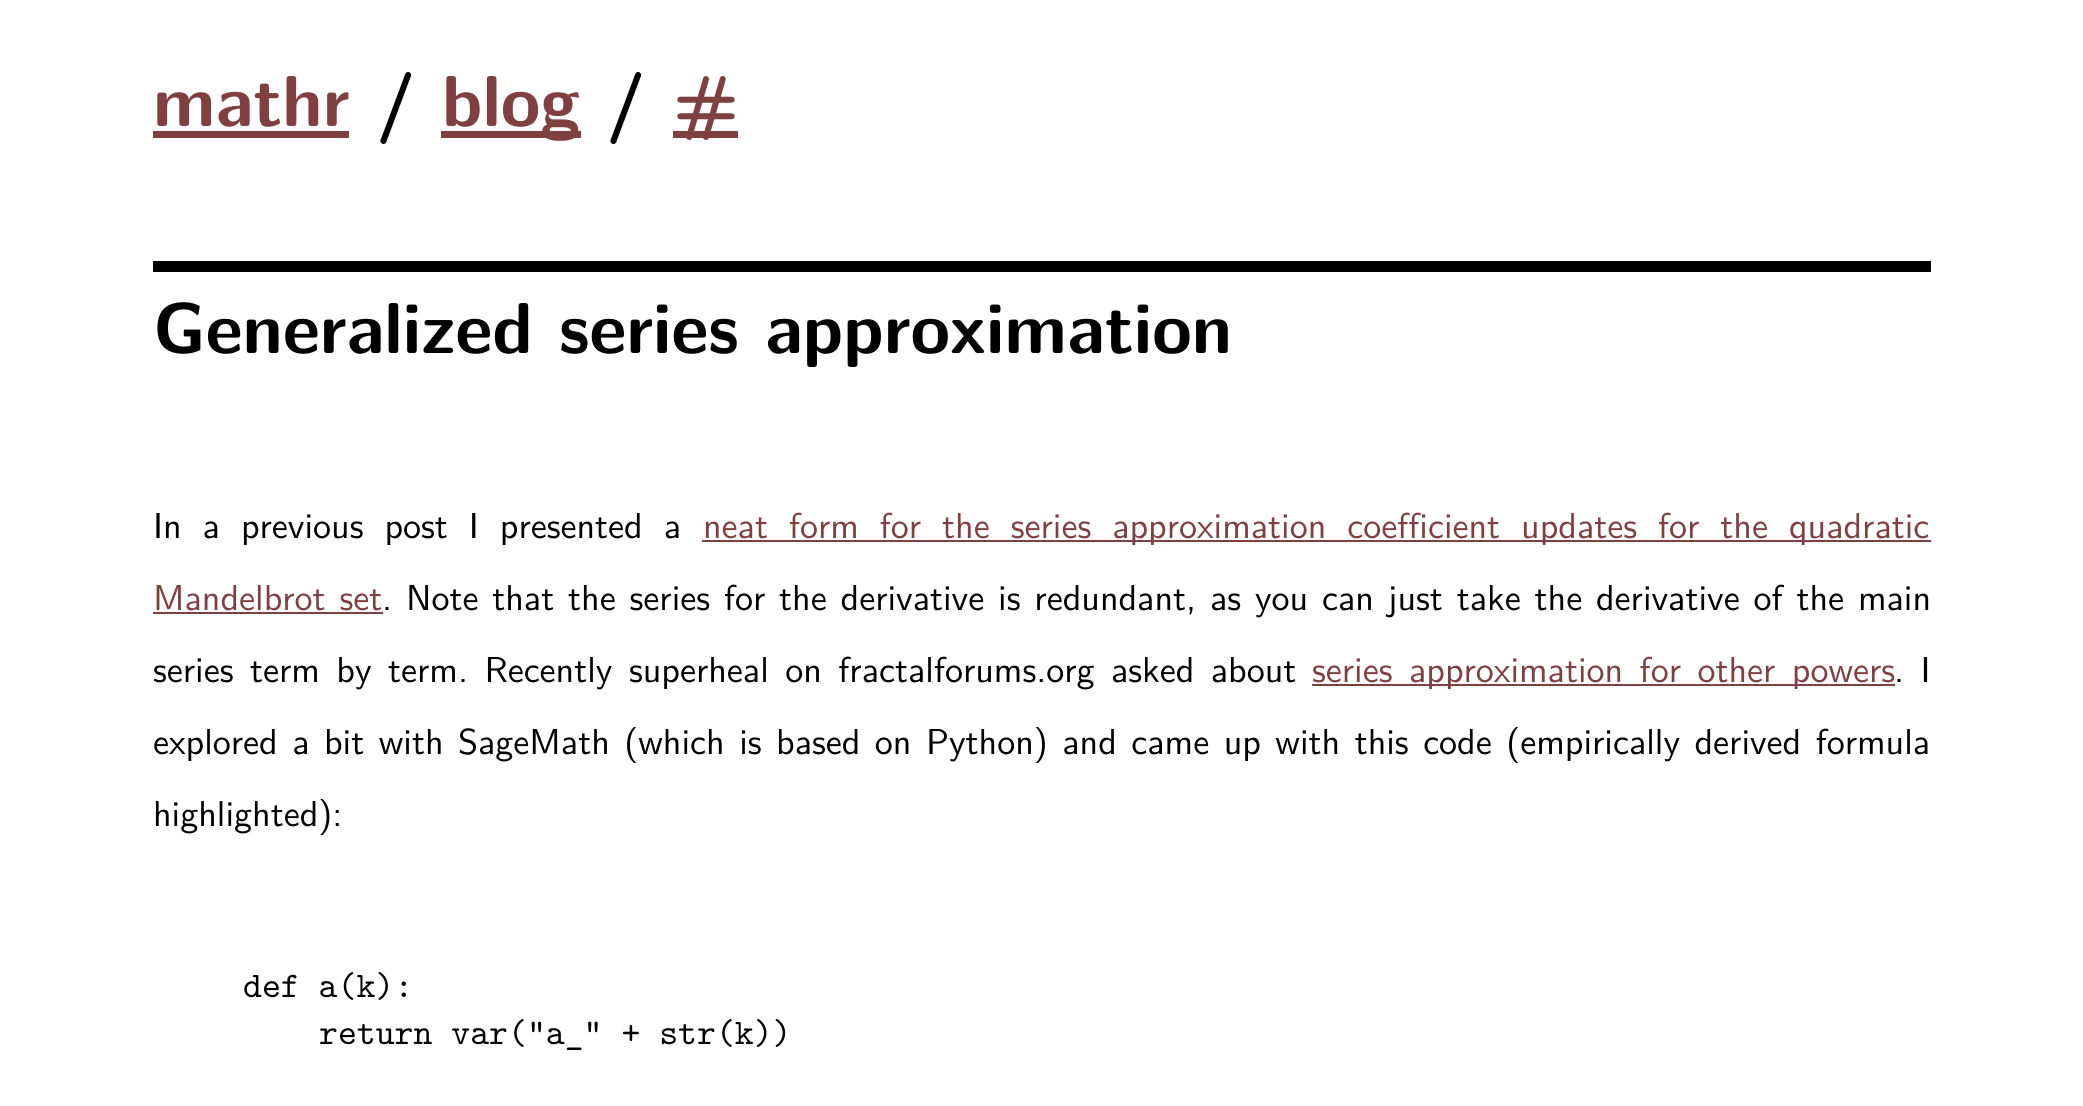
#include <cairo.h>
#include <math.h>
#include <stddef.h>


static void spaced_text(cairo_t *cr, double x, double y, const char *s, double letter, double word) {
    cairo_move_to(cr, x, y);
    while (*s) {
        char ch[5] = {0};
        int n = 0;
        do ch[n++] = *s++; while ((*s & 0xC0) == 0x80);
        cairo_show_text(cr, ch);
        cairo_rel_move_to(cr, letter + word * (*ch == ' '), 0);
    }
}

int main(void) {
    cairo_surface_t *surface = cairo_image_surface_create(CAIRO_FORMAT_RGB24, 2083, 1106);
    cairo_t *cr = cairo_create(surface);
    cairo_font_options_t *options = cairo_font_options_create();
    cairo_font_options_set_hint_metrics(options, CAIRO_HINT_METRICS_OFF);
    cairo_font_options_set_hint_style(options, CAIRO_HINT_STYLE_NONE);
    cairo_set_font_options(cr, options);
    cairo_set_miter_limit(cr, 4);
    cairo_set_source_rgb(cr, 1, 1, 1);
    cairo_paint(cr);
    cairo_select_font_face(cr, "Latin Modern Sans", CAIRO_FONT_SLANT_NORMAL, CAIRO_FONT_WEIGHT_BOLD);
    cairo_set_font_size(cr, 72);
    cairo_set_source_rgb(cr, 0.502, 0.251, 0.251);
    cairo_move_to(cr, 153, 126);
    cairo_show_text(cr, "mathr");
    cairo_rectangle(cr, 153, 131, 196, 7);
    cairo_fill(cr);
    cairo_set_source_rgb(cr, 0, 0, 0);
    cairo_move_to(cr, 376, 126);
    cairo_show_text(cr, "/");
    cairo_set_source_rgb(cr, 0.502, 0.251, 0.251);
    cairo_rectangle(cr, 441, 131, 140, 7);
    cairo_fill(cr);
    cairo_move_to(cr, 442, 126);
    cairo_show_text(cr, "blog");
    cairo_set_source_rgb(cr, 0, 0, 0);
    cairo_move_to(cr, 606, 126);
    cairo_show_text(cr, "/");
    cairo_set_source_rgb(cr, 0.502, 0.251, 0.251);
    cairo_rectangle(cr, 673, 131, 65, 7);
    cairo_fill(cr);
    cairo_move_to(cr, 673, 126);
    cairo_show_text(cr, "#");
    cairo_set_source_rgb(cr, 0, 0, 0);
    cairo_rectangle(cr, 153, 261, 1778, 11);
    cairo_fill(cr);
    cairo_move_to(cr, 153, 353);
    cairo_show_text(cr, "Generalized series approximation");
    cairo_select_font_face(cr, "Latin Modern Sans", CAIRO_FONT_SLANT_NORMAL, CAIRO_FONT_WEIGHT_NORMAL);
    cairo_set_font_size(cr, 36);
    spaced_text(cr, 153, 538, "In a previous post I presented a", 0, 9);
    cairo_set_source_rgb(cr, 0.502, 0.251, 0.251);
    cairo_rectangle(cr, 702, 540, 1229, 2);
    cairo_fill(cr);
    spaced_text(cr, 703, 538, "neat form for the series approximation coefficient updates for the quadratic", 0, 9);
    spaced_text(cr, 153, 610, "Mandelbrot set", 0, 2);
    cairo_rectangle(cr, 153, 612, 230, 2);
    cairo_fill(cr);
    cairo_set_source_rgb(cr, 0, 0, 0);
    spaced_text(cr, 382, 610, ". Note that the series for the derivative is redundant, as you can just take the derivative of the main", 0, 1.9);
    spaced_text(cr, 153, 682, "series term by term. Recently superheal on fractalforums.org asked about", 0, 4.5);
    cairo_set_source_rgb(cr, 0.502, 0.251, 0.251);
    cairo_rectangle(cr, 1312, 684, 583, 2);
    cairo_fill(cr);
    spaced_text(cr, 1312, 682, "series approximation for other powers", 0, 4.5);
    cairo_set_source_rgb(cr, 0, 0, 0);
    spaced_text(cr, 1894, 682, ". I", 0, 4.5);
    spaced_text(cr, 153, 754, "explored a bit with SageMath (which is based on Python) and came up with this code (empirically derived formula", 0, 2.5);
    cairo_move_to(cr, 153, 826);
    cairo_show_text(cr, "highlighted):");
    cairo_select_font_face(cr, "Latin Modern Mono", CAIRO_FONT_SLANT_NORMAL, CAIRO_FONT_WEIGHT_NORMAL);
    cairo_move_to(cr, 243, 997);
    cairo_show_text(cr, "def a(k):");
    cairo_move_to(cr, 319, 1044);
    cairo_show_text(cr, "return var(\"a_\" + str(k))");
    cairo_surface_write_to_png(surface, "page.png");
    cairo_font_options_destroy(options);
    cairo_destroy(cr);
    cairo_surface_destroy(surface);
    return 0;
}
